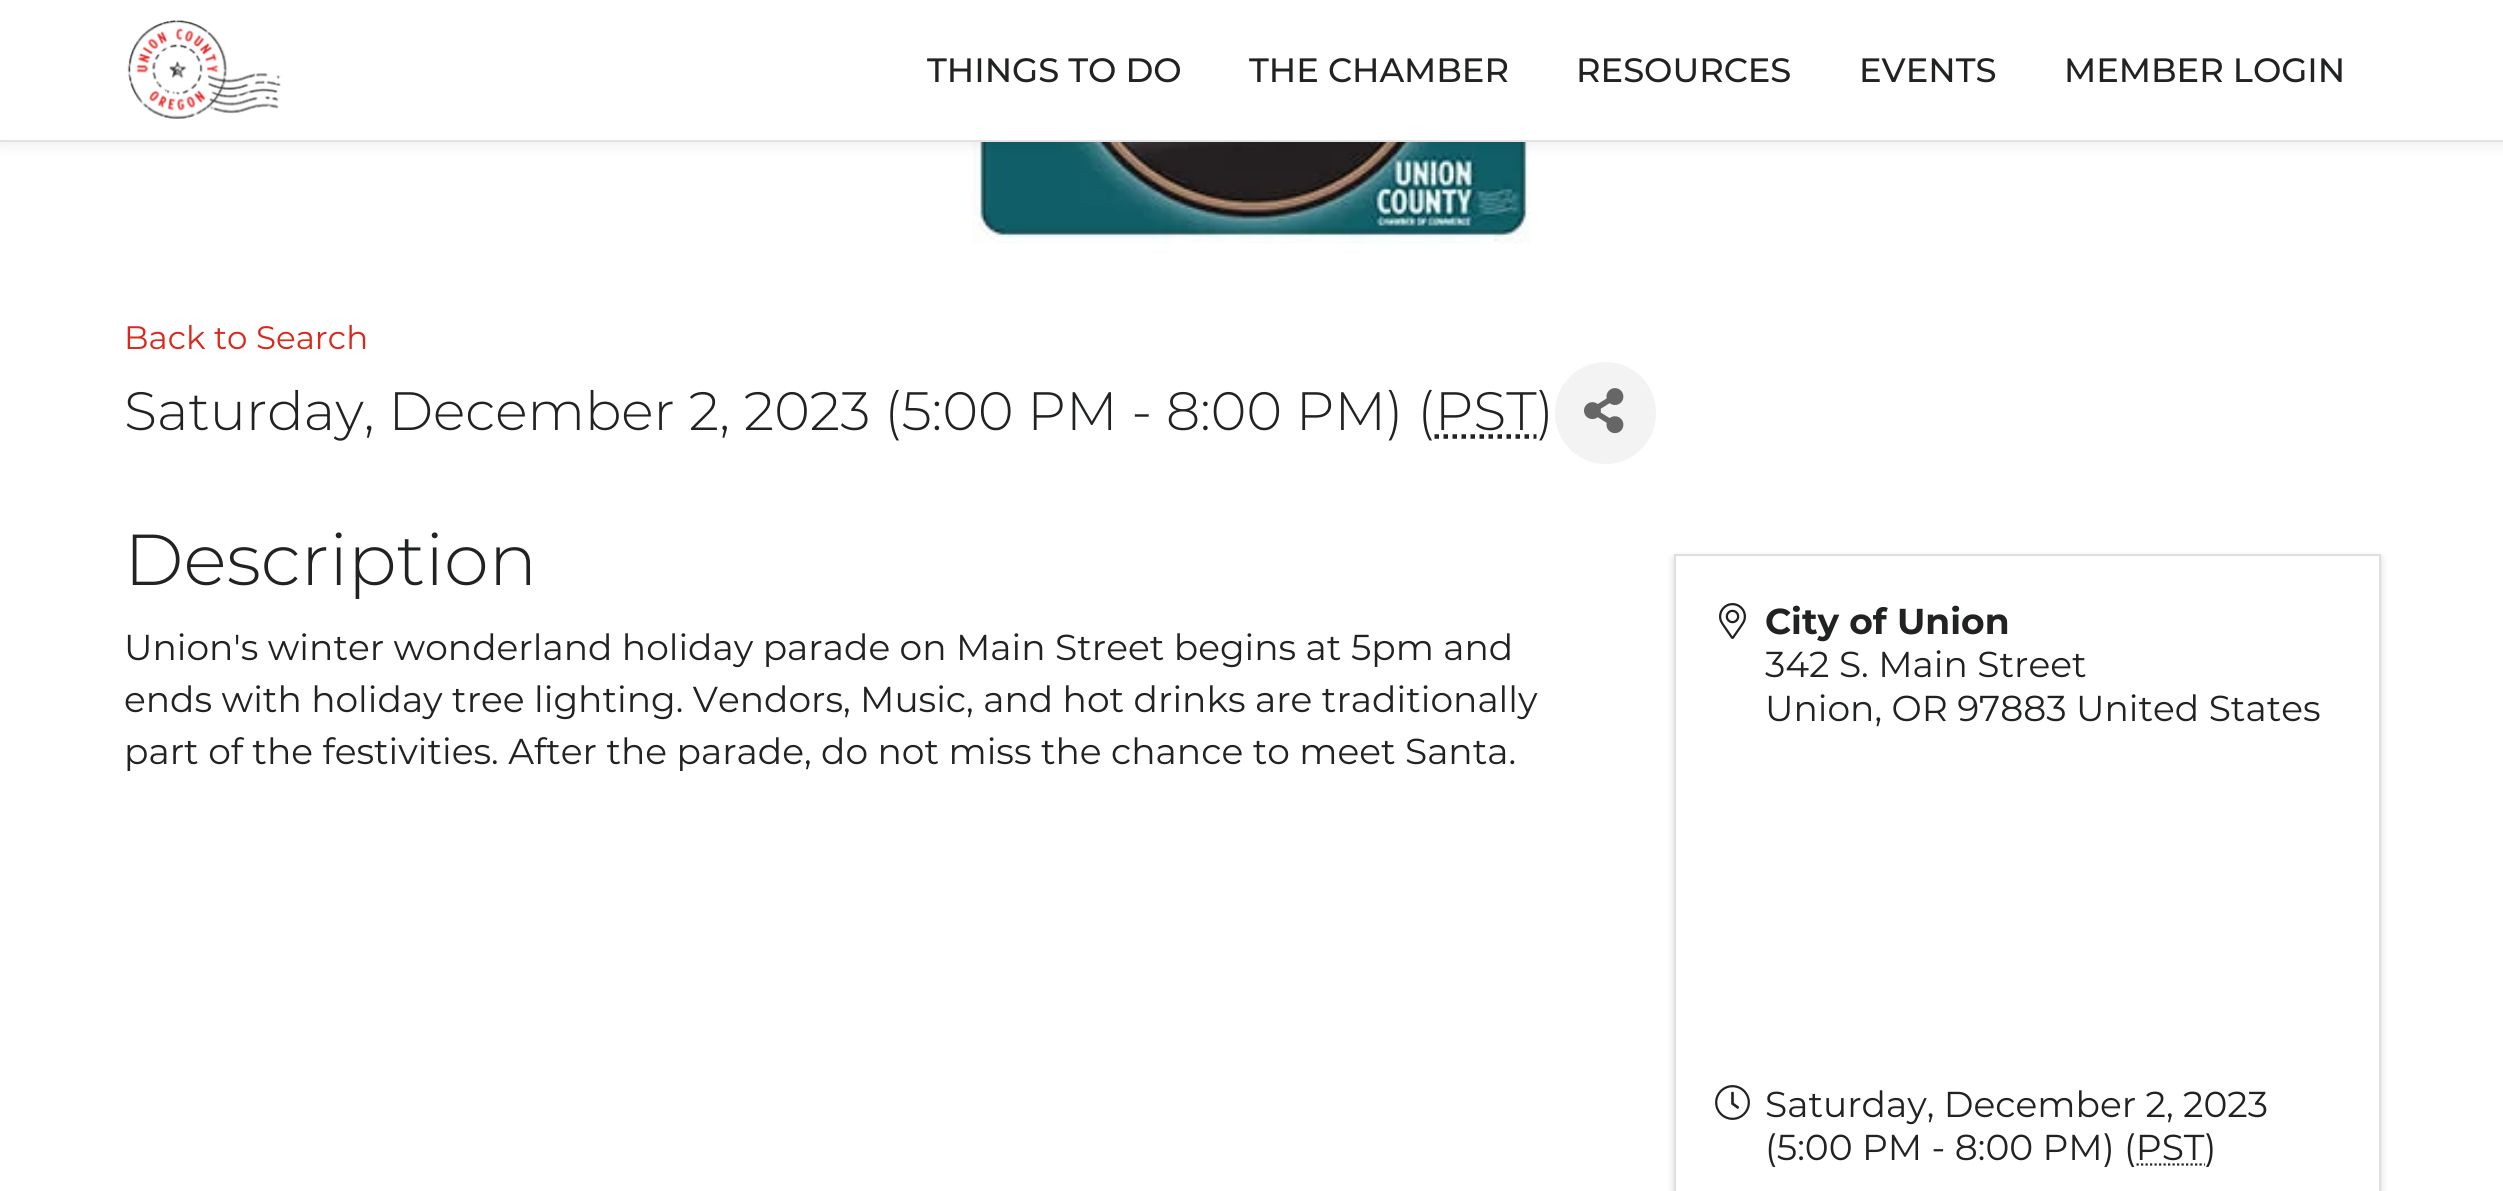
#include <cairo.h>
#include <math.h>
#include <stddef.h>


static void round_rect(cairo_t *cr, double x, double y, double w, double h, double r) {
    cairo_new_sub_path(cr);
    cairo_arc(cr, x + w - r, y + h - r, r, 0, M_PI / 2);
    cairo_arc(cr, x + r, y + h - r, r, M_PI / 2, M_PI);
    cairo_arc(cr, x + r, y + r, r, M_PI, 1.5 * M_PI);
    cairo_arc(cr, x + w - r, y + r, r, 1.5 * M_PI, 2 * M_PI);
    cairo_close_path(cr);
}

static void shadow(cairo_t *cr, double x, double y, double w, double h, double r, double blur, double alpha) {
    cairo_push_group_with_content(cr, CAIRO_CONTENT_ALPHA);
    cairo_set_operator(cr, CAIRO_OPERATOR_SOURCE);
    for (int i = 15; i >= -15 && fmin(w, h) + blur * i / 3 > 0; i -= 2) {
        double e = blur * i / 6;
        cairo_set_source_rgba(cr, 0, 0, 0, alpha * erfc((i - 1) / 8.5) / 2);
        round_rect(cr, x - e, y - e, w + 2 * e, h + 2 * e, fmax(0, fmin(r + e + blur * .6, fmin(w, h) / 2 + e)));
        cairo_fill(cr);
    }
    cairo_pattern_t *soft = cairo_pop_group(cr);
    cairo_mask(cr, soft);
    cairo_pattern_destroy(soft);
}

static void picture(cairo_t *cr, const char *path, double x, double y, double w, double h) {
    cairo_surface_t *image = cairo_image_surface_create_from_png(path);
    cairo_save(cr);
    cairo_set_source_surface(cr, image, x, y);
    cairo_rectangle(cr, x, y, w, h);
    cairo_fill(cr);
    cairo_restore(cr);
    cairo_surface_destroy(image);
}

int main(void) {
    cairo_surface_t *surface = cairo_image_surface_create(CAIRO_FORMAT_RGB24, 2503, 1191);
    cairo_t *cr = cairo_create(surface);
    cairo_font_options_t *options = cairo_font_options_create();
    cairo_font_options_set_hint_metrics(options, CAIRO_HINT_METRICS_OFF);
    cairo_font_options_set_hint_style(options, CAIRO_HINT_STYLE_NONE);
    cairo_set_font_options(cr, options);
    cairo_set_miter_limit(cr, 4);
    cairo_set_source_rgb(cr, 1, 1, 1);
    cairo_paint(cr);
    picture(cr, "img2.png", 972, 142, 559, 102);
    cairo_set_source_rgb(cr, 0, 0, 0);
    shadow(cr, 0, 0, 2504, 142, 0, 8, 0.1);
    cairo_set_source_rgb(cr, 1, 1, 1);
    cairo_rectangle(cr, 0, 0, 2503, 140);
    cairo_fill(cr);
    cairo_set_source_rgb(cr, 0.886, 0.886, 0.886);
    cairo_rectangle(cr, 0, 140, 2503, 2);
    cairo_fill(cr);
    picture(cr, "img1.png", 127, 20, 154, 99);
    cairo_select_font_face(cr, "Montserrat Medium", CAIRO_FONT_SLANT_NORMAL, CAIRO_FONT_WEIGHT_NORMAL);
    cairo_set_font_size(cr, 33.75);
    cairo_set_source_rgb(cr, 0.129, 0.137, 0.133);
    cairo_move_to(cr, 927, 82);
    cairo_show_text(cr, "THINGS TO DO");
    cairo_move_to(cr, 1249, 82);
    cairo_show_text(cr, "THE CHAMBER");
    cairo_move_to(cr, 1576, 82);
    cairo_show_text(cr, "RESOURCES");
    cairo_move_to(cr, 1859, 82);
    cairo_show_text(cr, "EVENTS");
    cairo_move_to(cr, 2064, 82);
    cairo_show_text(cr, "MEMBER LOGIN");
    cairo_select_font_face(cr, "Montserrat", CAIRO_FONT_SLANT_NORMAL, CAIRO_FONT_WEIGHT_NORMAL);
    cairo_set_font_size(cr, 32.5);
    cairo_set_source_rgb(cr, 0.855, 0.161, 0.11);
    cairo_move_to(cr, 124, 349);
    cairo_show_text(cr, "Back to Search");
    cairo_select_font_face(cr, "Montserrat Light", CAIRO_FONT_SLANT_NORMAL, CAIRO_FONT_WEIGHT_NORMAL);
    cairo_set_font_size(cr, 54);
    cairo_set_source_rgb(cr, 0.129, 0.137, 0.133);
    cairo_move_to(cr, 124, 430);
    cairo_show_text(cr, "Saturday, December 2, 2023 (5:00 PM - 8:00 PM) (PST)");
    cairo_new_path(cr);
    cairo_move_to(cr, 1434.5, 436.5);
    cairo_line_to(cr, 1536.5, 436.5);
    cairo_set_line_width(cr, 4.5);
    cairo_set_dash(cr, (double[]){4.5, 4.5}, 2, 0);
    cairo_stroke(cr);
    cairo_set_source_rgb(cr, 0.953, 0.953, 0.953);
    round_rect(cr, 1555, 362, 101, 102, 50.5);
    cairo_fill(cr);
    picture(cr, "img3.png", 1584, 388, 40, 46);
    cairo_set_font_size(cr, 72);
    cairo_set_source_rgb(cr, 0.129, 0.137, 0.133);
    cairo_move_to(cr, 124, 585);
    cairo_show_text(cr, "Description");
    cairo_select_font_face(cr, "Montserrat", CAIRO_FONT_SLANT_NORMAL, CAIRO_FONT_WEIGHT_NORMAL);
    cairo_set_font_size(cr, 36);
    cairo_move_to(cr, 124, 660);
    cairo_show_text(cr, "Union's winter wonderland holiday parade on Main Street begins at 5pm and");
    cairo_move_to(cr, 124, 712);
    cairo_show_text(cr, "ends with holiday tree lighting. Vendors, Music, and hot drinks are traditionally");
    cairo_move_to(cr, 124, 764);
    cairo_show_text(cr, "part of the festivities. After the parade, do not miss the chance to meet Santa.");
    cairo_set_source_rgb(cr, 0, 0, 0);
    shadow(cr, 1674, 558, 707, 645, 0, 4, 0.15);
    cairo_set_source_rgb(cr, 1, 1, 1);
    cairo_rectangle(cr, 1675, 555, 705, 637);
    cairo_fill_preserve(cr);
    cairo_set_source_rgb(cr, 0.875, 0.875, 0.875);
    cairo_set_line_width(cr, 2);
    cairo_set_dash(cr, NULL, 0, 0);
    cairo_stroke(cr);
    picture(cr, "img4.png", 1719, 603, 27, 36);
    cairo_select_font_face(cr, "Montserrat", CAIRO_FONT_SLANT_NORMAL, CAIRO_FONT_WEIGHT_BOLD);
    cairo_set_source_rgb(cr, 0.129, 0.137, 0.133);
    cairo_move_to(cr, 1765, 634);
    cairo_show_text(cr, "City of Union");
    cairo_select_font_face(cr, "Montserrat", CAIRO_FONT_SLANT_NORMAL, CAIRO_FONT_WEIGHT_NORMAL);
    cairo_move_to(cr, 1765, 677);
    cairo_show_text(cr, "342 S. Main Street");
    cairo_move_to(cr, 1765, 721);
    cairo_show_text(cr, "Union, OR 97883 United States");
    picture(cr, "img5.png", 1715, 1085, 35, 35);
    cairo_move_to(cr, 1765, 1117);
    cairo_show_text(cr, "Saturday, December 2, 2023");
    cairo_move_to(cr, 1765, 1160);
    cairo_show_text(cr, "(5:00 PM - 8:00 PM) (PST)");
    cairo_new_path(cr);
    cairo_move_to(cr, 2136.5, 1164.5);
    cairo_line_to(cr, 2205, 1164.5);
    cairo_set_line_width(cr, 2.2);
    cairo_set_dash(cr, (double[]){2.25, 2.25}, 2, 0);
    cairo_stroke(cr);
    cairo_surface_write_to_png(surface, "page.png");
    cairo_font_options_destroy(options);
    cairo_destroy(cr);
    cairo_surface_destroy(surface);
    return 0;
}
